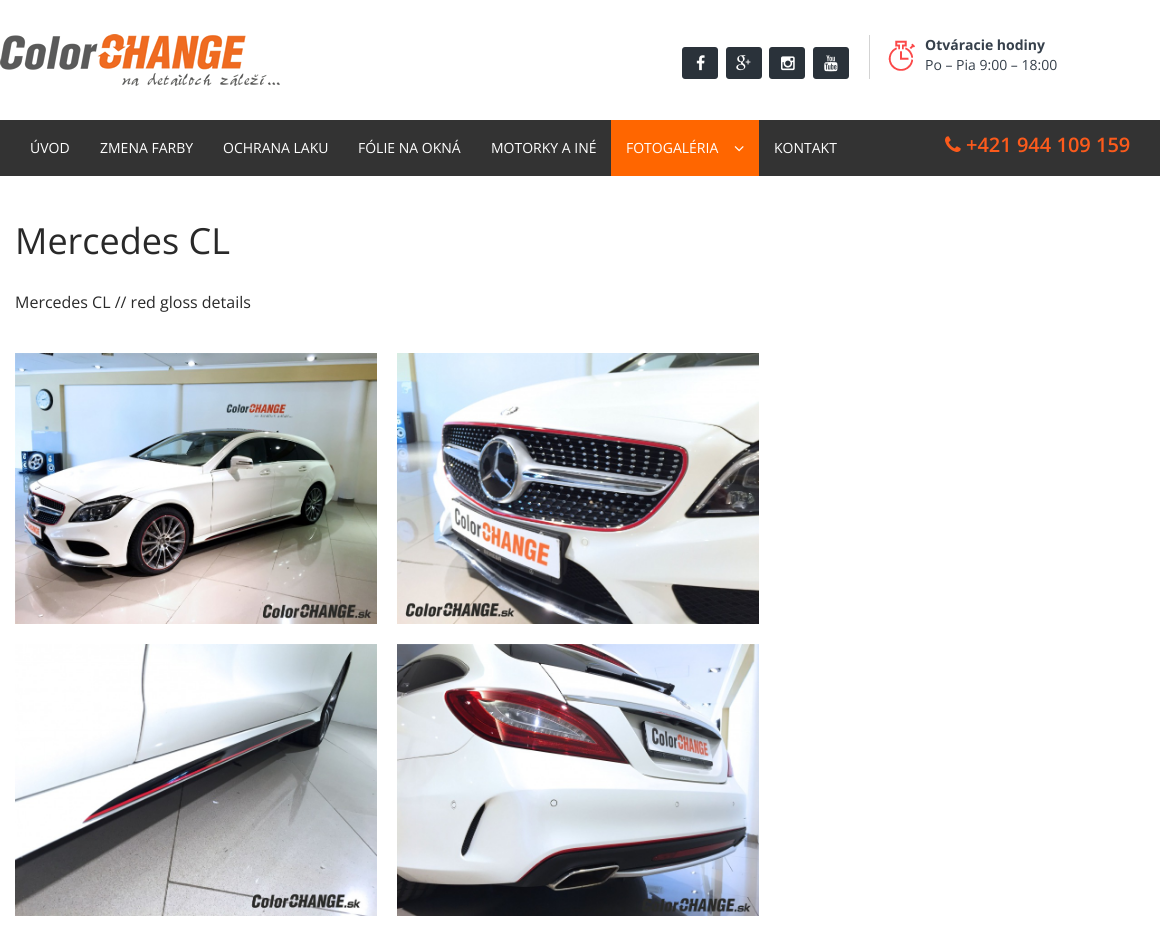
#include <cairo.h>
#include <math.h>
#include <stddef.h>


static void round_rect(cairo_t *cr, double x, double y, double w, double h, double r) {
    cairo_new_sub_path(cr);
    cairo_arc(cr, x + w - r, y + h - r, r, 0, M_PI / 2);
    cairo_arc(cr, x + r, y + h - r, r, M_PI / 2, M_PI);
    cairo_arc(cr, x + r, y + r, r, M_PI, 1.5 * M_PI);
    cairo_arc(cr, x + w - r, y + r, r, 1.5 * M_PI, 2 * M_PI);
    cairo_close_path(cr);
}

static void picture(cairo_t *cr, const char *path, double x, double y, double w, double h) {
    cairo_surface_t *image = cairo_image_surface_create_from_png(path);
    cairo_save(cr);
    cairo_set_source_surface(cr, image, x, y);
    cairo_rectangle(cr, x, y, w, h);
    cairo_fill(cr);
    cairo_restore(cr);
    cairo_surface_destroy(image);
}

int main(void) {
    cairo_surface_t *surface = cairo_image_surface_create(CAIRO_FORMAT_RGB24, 1160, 928);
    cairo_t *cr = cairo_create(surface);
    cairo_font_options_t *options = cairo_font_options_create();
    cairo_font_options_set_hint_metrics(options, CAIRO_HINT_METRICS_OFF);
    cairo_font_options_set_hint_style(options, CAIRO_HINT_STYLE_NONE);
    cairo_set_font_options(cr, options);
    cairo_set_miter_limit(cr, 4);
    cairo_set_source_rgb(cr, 1, 1, 1);
    cairo_paint(cr);
    picture(cr, "img1.png", 0, 34, 280, 52);
    cairo_set_source_rgb(cr, 0.827, 0.827, 0.827);
    cairo_rectangle(cr, 869, 35, 1, 44);
    cairo_fill(cr);
    cairo_set_source_rgb(cr, 0.165, 0.196, 0.227);
    round_rect(cr, 682, 47, 36, 32, 3);
    cairo_fill(cr);
    picture(cr, "img2.png", 696, 55, 9, 16);
    round_rect(cr, 726, 47, 36, 32, 3);
    cairo_fill(cr);
    picture(cr, "img3.png", 736, 55, 15, 16);
    round_rect(cr, 769, 47, 36, 32, 3);
    cairo_fill(cr);
    picture(cr, "img4.png", 781, 56, 14, 15);
    round_rect(cr, 813, 47, 36, 32, 3);
    cairo_fill(cr);
    picture(cr, "img5.png", 824, 55, 14, 17);
    picture(cr, "img6.png", 888, 40, 27, 31);
    cairo_select_font_face(cr, "Open Sans", CAIRO_FONT_SLANT_NORMAL, CAIRO_FONT_WEIGHT_BOLD);
    cairo_set_font_size(cr, 14);
    cairo_set_source_rgb(cr, 0.212, 0.251, 0.294);
    cairo_move_to(cr, 925, 50);
    cairo_show_text(cr, "Otváracie hodiny");
    cairo_select_font_face(cr, "Open Sans", CAIRO_FONT_SLANT_NORMAL, CAIRO_FONT_WEIGHT_NORMAL);
    cairo_move_to(cr, 925, 70);
    cairo_show_text(cr, "Po – Pia 9:00 – 18:00");
    cairo_set_source_rgb(cr, 0.2, 0.2, 0.2);
    cairo_rectangle(cr, 0, 120, 1160, 56);
    cairo_fill(cr);
    cairo_set_source_rgb(cr, 1, 1, 1);
    cairo_move_to(cr, 30, 153);
    cairo_show_text(cr, "ÚVOD");
    cairo_move_to(cr, 100, 153);
    cairo_show_text(cr, "ZMENA FARBY");
    cairo_move_to(cr, 223, 153);
    cairo_show_text(cr, "OCHRANA LAKU");
    cairo_move_to(cr, 358, 153);
    cairo_show_text(cr, "FÓLIE NA OKNÁ");
    cairo_move_to(cr, 491, 153);
    cairo_show_text(cr, "MOTORKY A INÉ");
    cairo_set_source_rgb(cr, 1, 0.4, 0);
    cairo_rectangle(cr, 611, 120, 148, 56);
    cairo_fill(cr);
    cairo_set_source_rgb(cr, 1, 1, 1);
    cairo_move_to(cr, 626, 153);
    cairo_show_text(cr, "FOTOGALÉRIA");
    picture(cr, "img7.png", 734, 146, 10, 6);
    cairo_move_to(cr, 774, 153);
    cairo_show_text(cr, "KONTAKT");
    picture(cr, "img8.png", 945, 136, 16, 16);
    cairo_select_font_face(cr, "Open Sans SemiBold", CAIRO_FONT_SLANT_NORMAL, CAIRO_FONT_WEIGHT_NORMAL);
    cairo_set_font_size(cr, 20);
    cairo_set_source_rgb(cr, 0.988, 0.353, 0.106);
    cairo_move_to(cr, 966, 152);
    cairo_show_text(cr, "+421 944 109 159");
    cairo_select_font_face(cr, "Open Sans", CAIRO_FONT_SLANT_NORMAL, CAIRO_FONT_WEIGHT_NORMAL);
    cairo_set_font_size(cr, 36);
    cairo_set_source_rgb(cr, 0.161, 0.161, 0.161);
    cairo_move_to(cr, 15, 254);
    cairo_show_text(cr, "Mercedes CL");
    cairo_set_font_size(cr, 16);
    cairo_move_to(cr, 15, 308);
    cairo_show_text(cr, "Mercedes CL // red gloss details");
    picture(cr, "img9.png", 15, 353, 362, 271);
    picture(cr, "img10.png", 397, 353, 362, 271);
    picture(cr, "img11.png", 15, 644, 362, 272);
    picture(cr, "img12.png", 397, 644, 362, 272);
    cairo_surface_write_to_png(surface, "page.png");
    cairo_font_options_destroy(options);
    cairo_destroy(cr);
    cairo_surface_destroy(surface);
    return 0;
}
